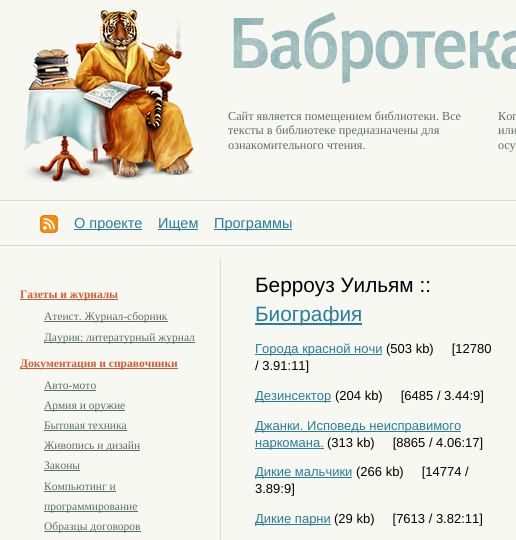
#include <cairo.h>
#include <math.h>
#include <stddef.h>


static void picture(cairo_t *cr, const char *path, double x, double y, double w, double h) {
    cairo_surface_t *image = cairo_image_surface_create_from_png(path);
    cairo_save(cr);
    cairo_set_source_surface(cr, image, x, y);
    cairo_rectangle(cr, x, y, w, h);
    cairo_fill(cr);
    cairo_restore(cr);
    cairo_surface_destroy(image);
}

int main(void) {
    cairo_surface_t *surface = cairo_image_surface_create(CAIRO_FORMAT_RGB24, 516, 540);
    cairo_t *cr = cairo_create(surface);
    cairo_font_options_t *options = cairo_font_options_create();
    cairo_font_options_set_hint_metrics(options, CAIRO_HINT_METRICS_OFF);
    cairo_font_options_set_hint_style(options, CAIRO_HINT_STYLE_NONE);
    cairo_set_font_options(cr, options);
    cairo_set_miter_limit(cr, 4);
    cairo_set_source_rgb(cr, 0.965, 0.969, 0.949);
    cairo_paint(cr);
    picture(cr, "img1.png", 24, 9, 170, 174);
    picture(cr, "img2.png", 233, 12, 283, 72);
    cairo_select_font_face(cr, "Liberation Serif", CAIRO_FONT_SLANT_NORMAL, CAIRO_FONT_WEIGHT_NORMAL);
    cairo_set_font_size(cr, 12.25);
    cairo_set_source_rgb(cr, 0.361, 0.427, 0.431);
    cairo_move_to(cr, 228, 120);
    cairo_show_text(cr, "Cайт является помещением библиотеки. Все");
    cairo_move_to(cr, 228, 134);
    cairo_show_text(cr, "тексты в библиотеке предназначены для");
    cairo_move_to(cr, 228, 149);
    cairo_show_text(cr, "ознакомительного чтения.");
    cairo_move_to(cr, 498, 120);
    cairo_show_text(cr, "Коп");
    cairo_move_to(cr, 498, 134);
    cairo_show_text(cr, "или");
    cairo_move_to(cr, 498, 149);
    cairo_show_text(cr, "осу");
    cairo_set_source_rgb(cr, 0.855, 0.855, 0.855);
    cairo_rectangle(cr, 0, 200, 516, 1);
    cairo_fill(cr);
    picture(cr, "img3.png", 40, 215, 18, 18);
    cairo_set_source_rgb(cr, 0.157, 0.49, 0.604);
    cairo_rectangle(cr, 74, 229, 68, 1);
    cairo_fill(cr);
    cairo_select_font_face(cr, "Liberation Sans", CAIRO_FONT_SLANT_NORMAL, CAIRO_FONT_WEIGHT_NORMAL);
    cairo_set_font_size(cr, 14.5);
    cairo_move_to(cr, 74, 228);
    cairo_show_text(cr, "О проекте");
    cairo_rectangle(cr, 158, 229, 40, 1);
    cairo_fill(cr);
    cairo_move_to(cr, 158, 228);
    cairo_show_text(cr, "Ищем");
    cairo_rectangle(cr, 214, 229, 78, 1);
    cairo_fill(cr);
    cairo_move_to(cr, 214, 228);
    cairo_show_text(cr, "Программы");
    cairo_set_source_rgb(cr, 0.855, 0.855, 0.855);
    cairo_rectangle(cr, 0, 245, 516, 1);
    cairo_fill(cr);
    cairo_rectangle(cr, 220, 258, 1, 282);
    cairo_fill(cr);
    cairo_set_source_rgb(cr, 0.839, 0.353, 0.192);
    cairo_rectangle(cr, 20, 299, 98, 1);
    cairo_fill(cr);
    cairo_select_font_face(cr, "Liberation Serif", CAIRO_FONT_SLANT_NORMAL, CAIRO_FONT_WEIGHT_BOLD);
    cairo_set_font_size(cr, 11.5);
    cairo_move_to(cr, 20, 298);
    cairo_show_text(cr, "Газеты и журналы");
    cairo_set_source_rgb(cr, 0.361, 0.427, 0.431);
    cairo_rectangle(cr, 44, 321, 124, 1);
    cairo_fill(cr);
    cairo_select_font_face(cr, "Liberation Serif", CAIRO_FONT_SLANT_NORMAL, CAIRO_FONT_WEIGHT_NORMAL);
    cairo_move_to(cr, 44, 320);
    cairo_show_text(cr, "Атеист. Журнал-сборник");
    cairo_rectangle(cr, 44, 342, 151, 1);
    cairo_fill(cr);
    cairo_move_to(cr, 44, 341);
    cairo_show_text(cr, "Даурия: литературный журнал");
    cairo_set_source_rgb(cr, 0.839, 0.353, 0.192);
    cairo_rectangle(cr, 20, 368, 158, 1);
    cairo_fill(cr);
    cairo_select_font_face(cr, "Liberation Serif", CAIRO_FONT_SLANT_NORMAL, CAIRO_FONT_WEIGHT_BOLD);
    cairo_move_to(cr, 20, 367);
    cairo_show_text(cr, "Документация и справочники");
    cairo_select_font_face(cr, "Liberation Serif", CAIRO_FONT_SLANT_NORMAL, CAIRO_FONT_WEIGHT_NORMAL);
    cairo_set_source_rgb(cr, 0.361, 0.427, 0.431);
    cairo_move_to(cr, 44, 389);
    cairo_show_text(cr, "Авто-мото");
    cairo_rectangle(cr, 44, 390, 52, 1);
    cairo_fill(cr);
    cairo_rectangle(cr, 44, 410, 81, 1);
    cairo_fill(cr);
    cairo_move_to(cr, 44, 409);
    cairo_show_text(cr, "Армия и оружие");
    cairo_move_to(cr, 44, 429);
    cairo_show_text(cr, "Бытовая техника");
    cairo_rectangle(cr, 44, 430, 83, 1);
    cairo_fill(cr);
    cairo_rectangle(cr, 44, 450, 96, 1);
    cairo_fill(cr);
    cairo_move_to(cr, 44, 449);
    cairo_show_text(cr, "Живопись и дизайн");
    cairo_move_to(cr, 44, 469);
    cairo_show_text(cr, "Законы");
    cairo_rectangle(cr, 44, 470, 36, 1);
    cairo_fill(cr);
    cairo_move_to(cr, 44, 490);
    cairo_show_text(cr, "Компьютинг и");
    cairo_rectangle(cr, 44, 491, 72, 1);
    cairo_fill(cr);
    cairo_rectangle(cr, 44, 511, 94, 1);
    cairo_fill(cr);
    cairo_move_to(cr, 44, 510);
    cairo_show_text(cr, "программирование");
    cairo_rectangle(cr, 44, 531, 97, 1);
    cairo_fill(cr);
    cairo_move_to(cr, 44, 530);
    cairo_show_text(cr, "Образцы договоров");
    cairo_select_font_face(cr, "Liberation Sans", CAIRO_FONT_SLANT_NORMAL, CAIRO_FONT_WEIGHT_NORMAL);
    cairo_set_font_size(cr, 20.75);
    cairo_set_source_rgb(cr, 0, 0, 0);
    cairo_move_to(cr, 255, 292);
    cairo_show_text(cr, "Берроуз Уильям ::");
    cairo_set_source_rgb(cr, 0.157, 0.49, 0.604);
    cairo_rectangle(cr, 255, 323, 107, 2);
    cairo_fill(cr);
    cairo_move_to(cr, 255, 321);
    cairo_show_text(cr, "Биография");
    cairo_rectangle(cr, 255, 354, 127, 1);
    cairo_fill(cr);
    cairo_set_font_size(cr, 13);
    cairo_move_to(cr, 255, 353);
    cairo_show_text(cr, "Города красной ночи");
    cairo_set_source_rgb(cr, 0, 0, 0);
    cairo_move_to(cr, 386, 353);
    cairo_show_text(cr, "(503 kb)     [12780");
    cairo_move_to(cr, 255, 370);
    cairo_show_text(cr, "/ 3.91:11]");
    cairo_set_source_rgb(cr, 0.157, 0.49, 0.604);
    cairo_rectangle(cr, 255, 401, 76, 1);
    cairo_fill(cr);
    cairo_move_to(cr, 255, 400);
    cairo_show_text(cr, "Дезинсектор");
    cairo_set_source_rgb(cr, 0, 0, 0);
    cairo_move_to(cr, 335, 400);
    cairo_show_text(cr, "(204 kb)     [6485 / 3.44:9]");
    cairo_set_source_rgb(cr, 0.157, 0.49, 0.604);
    cairo_rectangle(cr, 255, 431, 206, 1);
    cairo_fill(cr);
    cairo_move_to(cr, 255, 430);
    cairo_show_text(cr, "Джанки. Исповедь неисправимого");
    cairo_rectangle(cr, 255, 448, 69, 1);
    cairo_fill(cr);
    cairo_move_to(cr, 255, 447);
    cairo_show_text(cr, "наркомана.");
    cairo_set_source_rgb(cr, 0, 0, 0);
    cairo_move_to(cr, 327, 447);
    cairo_show_text(cr, "(313 kb)     [8865 / 4.06:17]");
    cairo_set_source_rgb(cr, 0.157, 0.49, 0.604);
    cairo_rectangle(cr, 255, 477, 97, 1);
    cairo_fill(cr);
    cairo_move_to(cr, 255, 476);
    cairo_show_text(cr, "Дикие мальчики");
    cairo_set_source_rgb(cr, 0, 0, 0);
    cairo_move_to(cr, 356, 476);
    cairo_show_text(cr, "(266 kb)     [14774 /");
    cairo_move_to(cr, 255, 493);
    cairo_show_text(cr, "3.89:9]");
    cairo_set_source_rgb(cr, 0.157, 0.49, 0.604);
    cairo_rectangle(cr, 255, 524, 76, 1);
    cairo_fill(cr);
    cairo_move_to(cr, 255, 523);
    cairo_show_text(cr, "Дикие парни");
    cairo_set_source_rgb(cr, 0, 0, 0);
    cairo_move_to(cr, 334, 523);
    cairo_show_text(cr, "(29 kb)     [7613 / 3.82:11]");
    cairo_surface_write_to_png(surface, "page.png");
    cairo_font_options_destroy(options);
    cairo_destroy(cr);
    cairo_surface_destroy(surface);
    return 0;
}
